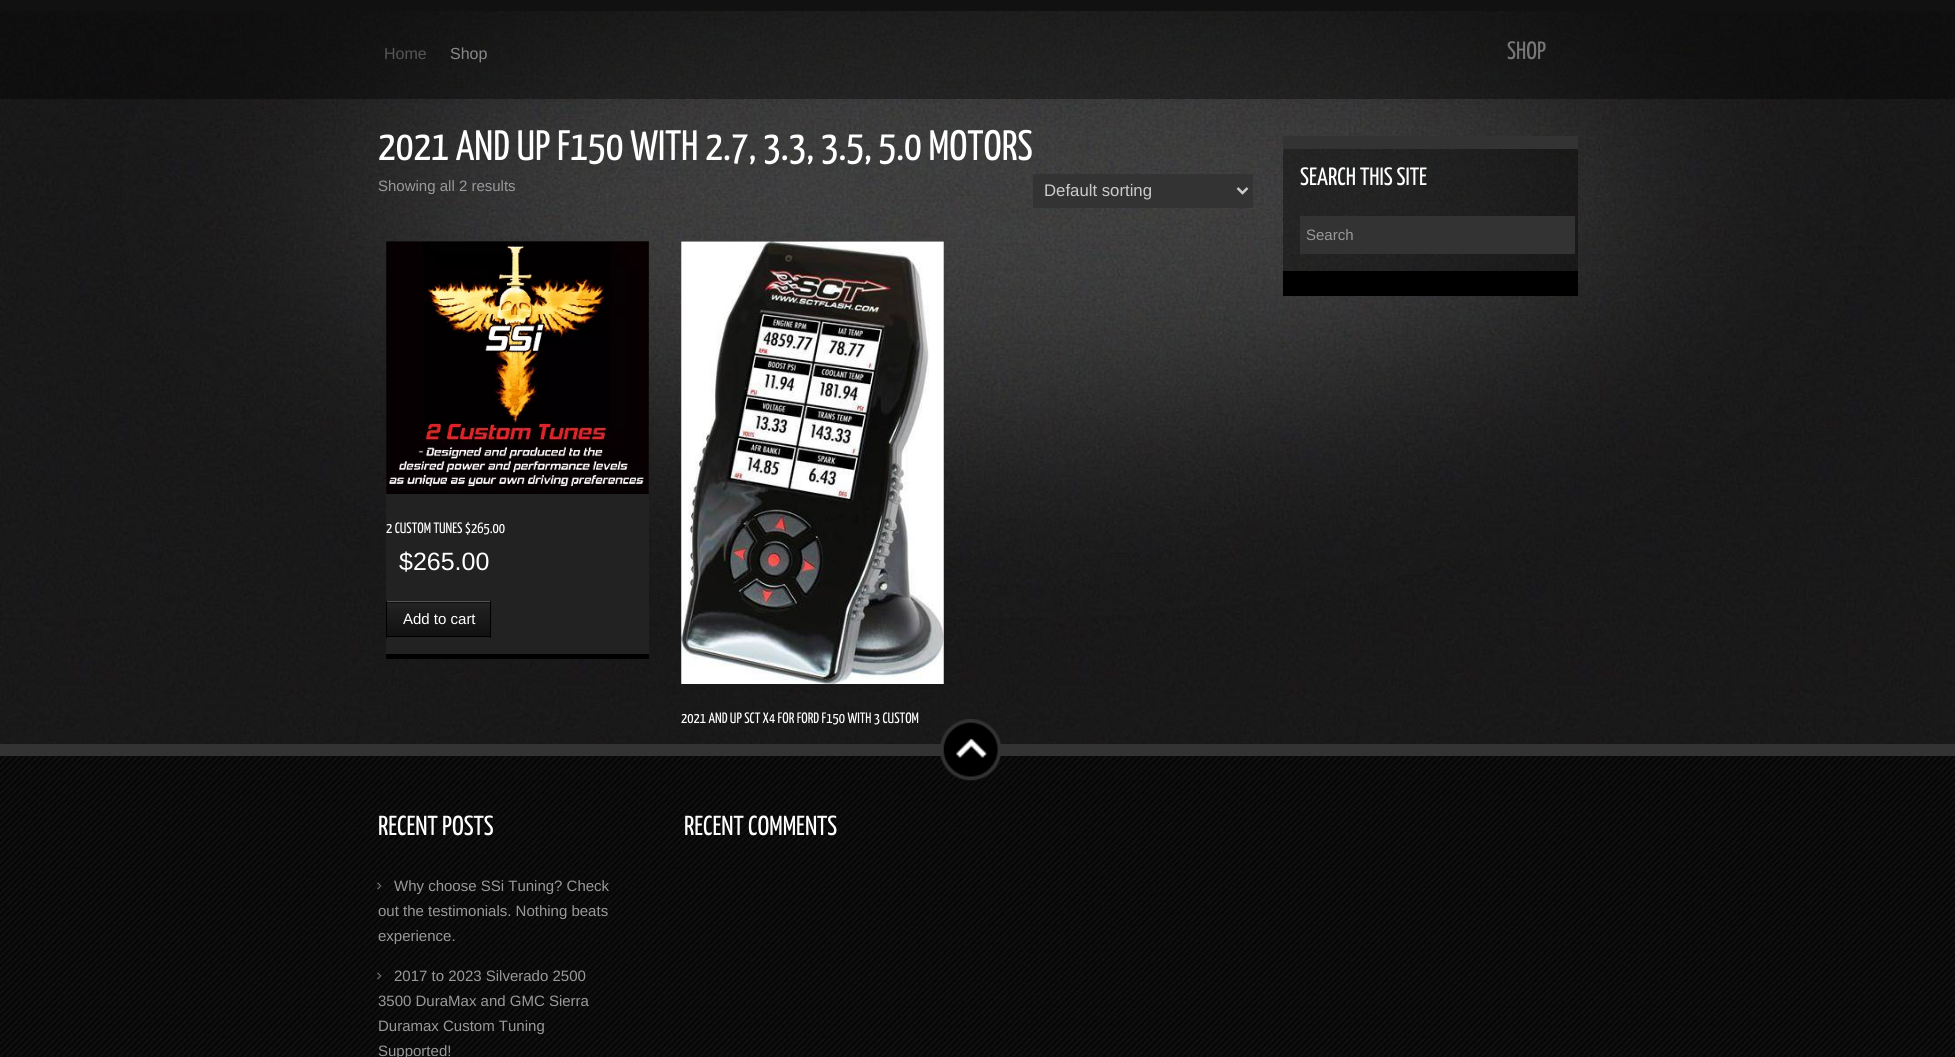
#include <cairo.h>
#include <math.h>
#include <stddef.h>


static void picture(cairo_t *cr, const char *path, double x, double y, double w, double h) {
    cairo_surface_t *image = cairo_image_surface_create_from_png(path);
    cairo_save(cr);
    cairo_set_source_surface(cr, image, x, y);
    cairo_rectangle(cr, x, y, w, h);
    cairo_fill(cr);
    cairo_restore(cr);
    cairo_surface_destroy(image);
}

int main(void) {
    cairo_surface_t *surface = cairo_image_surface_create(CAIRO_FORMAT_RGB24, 1955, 1057);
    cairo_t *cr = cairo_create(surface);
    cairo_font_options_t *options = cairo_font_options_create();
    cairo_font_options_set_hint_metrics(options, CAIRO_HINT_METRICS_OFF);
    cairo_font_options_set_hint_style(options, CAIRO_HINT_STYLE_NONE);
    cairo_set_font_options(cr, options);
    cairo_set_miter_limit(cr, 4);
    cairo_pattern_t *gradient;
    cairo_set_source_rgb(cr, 1, 1, 1);
    cairo_paint(cr);
    picture(cr, "img1.png", 0, 11, 1955, 733);
    cairo_set_source_rgb(cr, 0.067, 0.067, 0.067);
    cairo_rectangle(cr, 0, 0, 1955, 11);
    cairo_fill(cr);
    cairo_set_source_rgba(cr, 0, 0, 0, 0.4);
    cairo_rectangle(cr, 0, 11, 1955, 88);
    cairo_fill(cr);
    cairo_select_font_face(cr, "Arimo", CAIRO_FONT_SLANT_NORMAL, CAIRO_FONT_WEIGHT_NORMAL);
    cairo_set_font_size(cr, 16);
    cairo_set_source_rgb(cr, 0.333, 0.333, 0.333);
    cairo_move_to(cr, 384, 59);
    cairo_show_text(cr, "Home");
    cairo_set_source_rgb(cr, 0.533, 0.533, 0.533);
    cairo_move_to(cr, 450, 59);
    cairo_show_text(cr, "Shop");
    cairo_select_font_face(cr, "Yanone Kaffeesatz ExtraLight", CAIRO_FONT_SLANT_NORMAL, CAIRO_FONT_WEIGHT_NORMAL);
    cairo_set_font_size(cr, 25);
    cairo_set_source_rgb(cr, 0.467, 0.467, 0.467);
    cairo_move_to(cr, 1507, 59);
    cairo_show_text(cr, "SHOP");
    cairo_set_font_size(cr, 42.5);
    cairo_set_source_rgb(cr, 1, 1, 1);
    cairo_move_to(cr, 378, 160);
    cairo_show_text(cr, "2021 AND UP F150 WITH 2.7, 3.3, 3.5, 5.0 MOTORS");
    cairo_select_font_face(cr, "Arimo", CAIRO_FONT_SLANT_NORMAL, CAIRO_FONT_WEIGHT_NORMAL);
    cairo_set_font_size(cr, 15);
    cairo_set_source_rgb(cr, 0.6, 0.6, 0.6);
    cairo_move_to(cr, 378, 191);
    cairo_show_text(cr, "Showing all 2 results");
    cairo_set_source_rgb(cr, 0.2, 0.2, 0.2);
    cairo_rectangle(cr, 1033, 174, 220, 34);
    cairo_fill(cr);
    cairo_new_path(cr);
    cairo_move_to(cr, 1237.5, 188);
    cairo_line_to(cr, 1242.5, 193);
    cairo_line_to(cr, 1247.5, 188);
    cairo_set_source_rgb(cr, 0.8, 0.8, 0.8);
    cairo_set_line_width(cr, 2.5);
    cairo_stroke(cr);
    cairo_select_font_face(cr, "Liberation Sans", CAIRO_FONT_SLANT_NORMAL, CAIRO_FONT_WEIGHT_NORMAL);
    cairo_set_font_size(cr, 16.75);
    cairo_move_to(cr, 1044, 196);
    cairo_show_text(cr, "Default sorting");
    cairo_set_source_rgb(cr, 0.133, 0.133, 0.133);
    cairo_rectangle(cr, 386, 241, 263, 413);
    cairo_fill(cr);
    cairo_set_source_rgb(cr, 0, 0, 0);
    cairo_rectangle(cr, 386, 654, 263, 5);
    cairo_fill(cr);
    picture(cr, "img2.png", 386, 241, 263, 253);
    cairo_select_font_face(cr, "Yanone Kaffeesatz ExtraLight", CAIRO_FONT_SLANT_NORMAL, CAIRO_FONT_WEIGHT_NORMAL);
    cairo_set_font_size(cr, 15);
    cairo_set_source_rgb(cr, 1, 1, 1);
    cairo_move_to(cr, 386, 533);
    cairo_show_text(cr, "2 CUSTOM TUNES $265.00");
    cairo_select_font_face(cr, "Arimo", CAIRO_FONT_SLANT_NORMAL, CAIRO_FONT_WEIGHT_NORMAL);
    cairo_set_font_size(cr, 25);
    cairo_move_to(cr, 399, 570);
    cairo_show_text(cr, "$265.00");
    gradient = cairo_pattern_create_linear(388, 569, 388, 603);
    cairo_pattern_add_color_stop_rgba(gradient, 0, 0.133, 0.133, 0.133, 1);
    cairo_pattern_add_color_stop_rgba(gradient, 1, 0.067, 0.067, 0.067, 1);
    cairo_set_source(cr, gradient);
    cairo_pattern_destroy(gradient);
    cairo_rectangle(cr, 386, 602, 105, 1);
    cairo_fill(cr);
    gradient = cairo_pattern_create_linear(388, 603, 388, 636);
    cairo_pattern_add_color_stop_rgba(gradient, 0, 0.133, 0.133, 0.133, 1);
    cairo_pattern_add_color_stop_rgba(gradient, 1, 0.067, 0.067, 0.067, 1);
    cairo_set_source(cr, gradient);
    cairo_pattern_destroy(gradient);
    cairo_rectangle(cr, 387, 608, 103, 28);
    cairo_fill(cr);
    cairo_set_source_rgb(cr, 0.333, 0.333, 0.333);
    cairo_rectangle(cr, 386, 601, 105, 1);
    cairo_fill(cr);
    cairo_set_source_rgb(cr, 0, 0, 0);
    cairo_rectangle(cr, 490, 601, 1, 37);
    cairo_fill(cr);
    cairo_rectangle(cr, 386, 636, 105, 1);
    cairo_fill(cr);
    cairo_rectangle(cr, 386, 601, 1, 37);
    cairo_fill(cr);
    cairo_set_font_size(cr, 15);
    cairo_set_source_rgb(cr, 1, 1, 1);
    cairo_move_to(cr, 403, 624);
    cairo_show_text(cr, "Add to cart");
    cairo_set_source_rgb(cr, 0.133, 0.133, 0.133);
    cairo_rectangle(cr, 681, 241, 263, 418);
    cairo_fill(cr);
    picture(cr, "img3.png", 681, 241, 263, 443);
    cairo_select_font_face(cr, "Yanone Kaffeesatz ExtraLight", CAIRO_FONT_SLANT_NORMAL, CAIRO_FONT_WEIGHT_NORMAL);
    cairo_set_source_rgb(cr, 1, 1, 1);
    cairo_move_to(cr, 681, 723);
    cairo_show_text(cr, "2021 AND UP SCT X4 FOR FORD F150 WITH 3 CUSTOM");
    cairo_set_source_rgba(cr, 0, 0, 0, 0.4);
    cairo_rectangle(cr, 1283, 149, 295, 122);
    cairo_fill(cr);
    cairo_set_source_rgb(cr, 0.2, 0.2, 0.2);
    cairo_rectangle(cr, 1283, 136, 295, 13);
    cairo_fill(cr);
    cairo_set_source_rgb(cr, 0, 0, 0);
    cairo_rectangle(cr, 1283, 271, 295, 25);
    cairo_fill(cr);
    cairo_set_font_size(cr, 25);
    cairo_set_source_rgb(cr, 1, 1, 1);
    cairo_move_to(cr, 1300, 185);
    cairo_show_text(cr, "SEARCH THIS SITE");
    cairo_set_source_rgb(cr, 0.2, 0.2, 0.2);
    cairo_rectangle(cr, 1300, 216, 275, 38);
    cairo_fill(cr);
    cairo_select_font_face(cr, "Arimo", CAIRO_FONT_SLANT_NORMAL, CAIRO_FONT_WEIGHT_NORMAL);
    cairo_set_font_size(cr, 15);
    cairo_set_source_rgb(cr, 0.6, 0.6, 0.6);
    cairo_move_to(cr, 1306, 240);
    cairo_show_text(cr, "Search");
    picture(cr, "img4.png", 0, 756, 1955, 301);
    cairo_set_source_rgb(cr, 0.2, 0.2, 0.2);
    cairo_rectangle(cr, 0, 744, 1955, 12);
    cairo_fill(cr);
    picture(cr, "img5.png", 940, 719, 61, 62);
    cairo_select_font_face(cr, "Yanone Kaffeesatz ExtraLight", CAIRO_FONT_SLANT_NORMAL, CAIRO_FONT_WEIGHT_NORMAL);
    cairo_set_font_size(cr, 27.5);
    cairo_set_source_rgb(cr, 1, 1, 1);
    cairo_move_to(cr, 378, 835);
    cairo_show_text(cr, "RECENT POSTS");
    picture(cr, "img6.png", 377, 882, 5, 8);
    cairo_select_font_face(cr, "Arimo", CAIRO_FONT_SLANT_NORMAL, CAIRO_FONT_WEIGHT_NORMAL);
    cairo_set_font_size(cr, 15);
    cairo_set_source_rgb(cr, 0.6, 0.6, 0.6);
    cairo_move_to(cr, 394, 891);
    cairo_show_text(cr, "Why choose SSi Tuning? Check");
    cairo_move_to(cr, 378, 916);
    cairo_show_text(cr, "out the testimonials. Nothing beats");
    cairo_move_to(cr, 378, 941);
    cairo_show_text(cr, "experience.");
    picture(cr, "img7.png", 377, 972, 5, 8);
    cairo_move_to(cr, 394, 981);
    cairo_show_text(cr, "2017 to 2023 Silverado 2500");
    cairo_move_to(cr, 378, 1006);
    cairo_show_text(cr, "3500 DuraMax and GMC Sierra");
    cairo_move_to(cr, 378, 1031);
    cairo_show_text(cr, "Duramax Custom Tuning");
    cairo_move_to(cr, 378, 1056);
    cairo_show_text(cr, "Supported!");
    cairo_select_font_face(cr, "Yanone Kaffeesatz ExtraLight", CAIRO_FONT_SLANT_NORMAL, CAIRO_FONT_WEIGHT_NORMAL);
    cairo_set_font_size(cr, 27.5);
    cairo_set_source_rgb(cr, 1, 1, 1);
    cairo_move_to(cr, 684, 835);
    cairo_show_text(cr, "RECENT COMMENTS");
    cairo_surface_write_to_png(surface, "page.png");
    cairo_font_options_destroy(options);
    cairo_destroy(cr);
    cairo_surface_destroy(surface);
    return 0;
}
